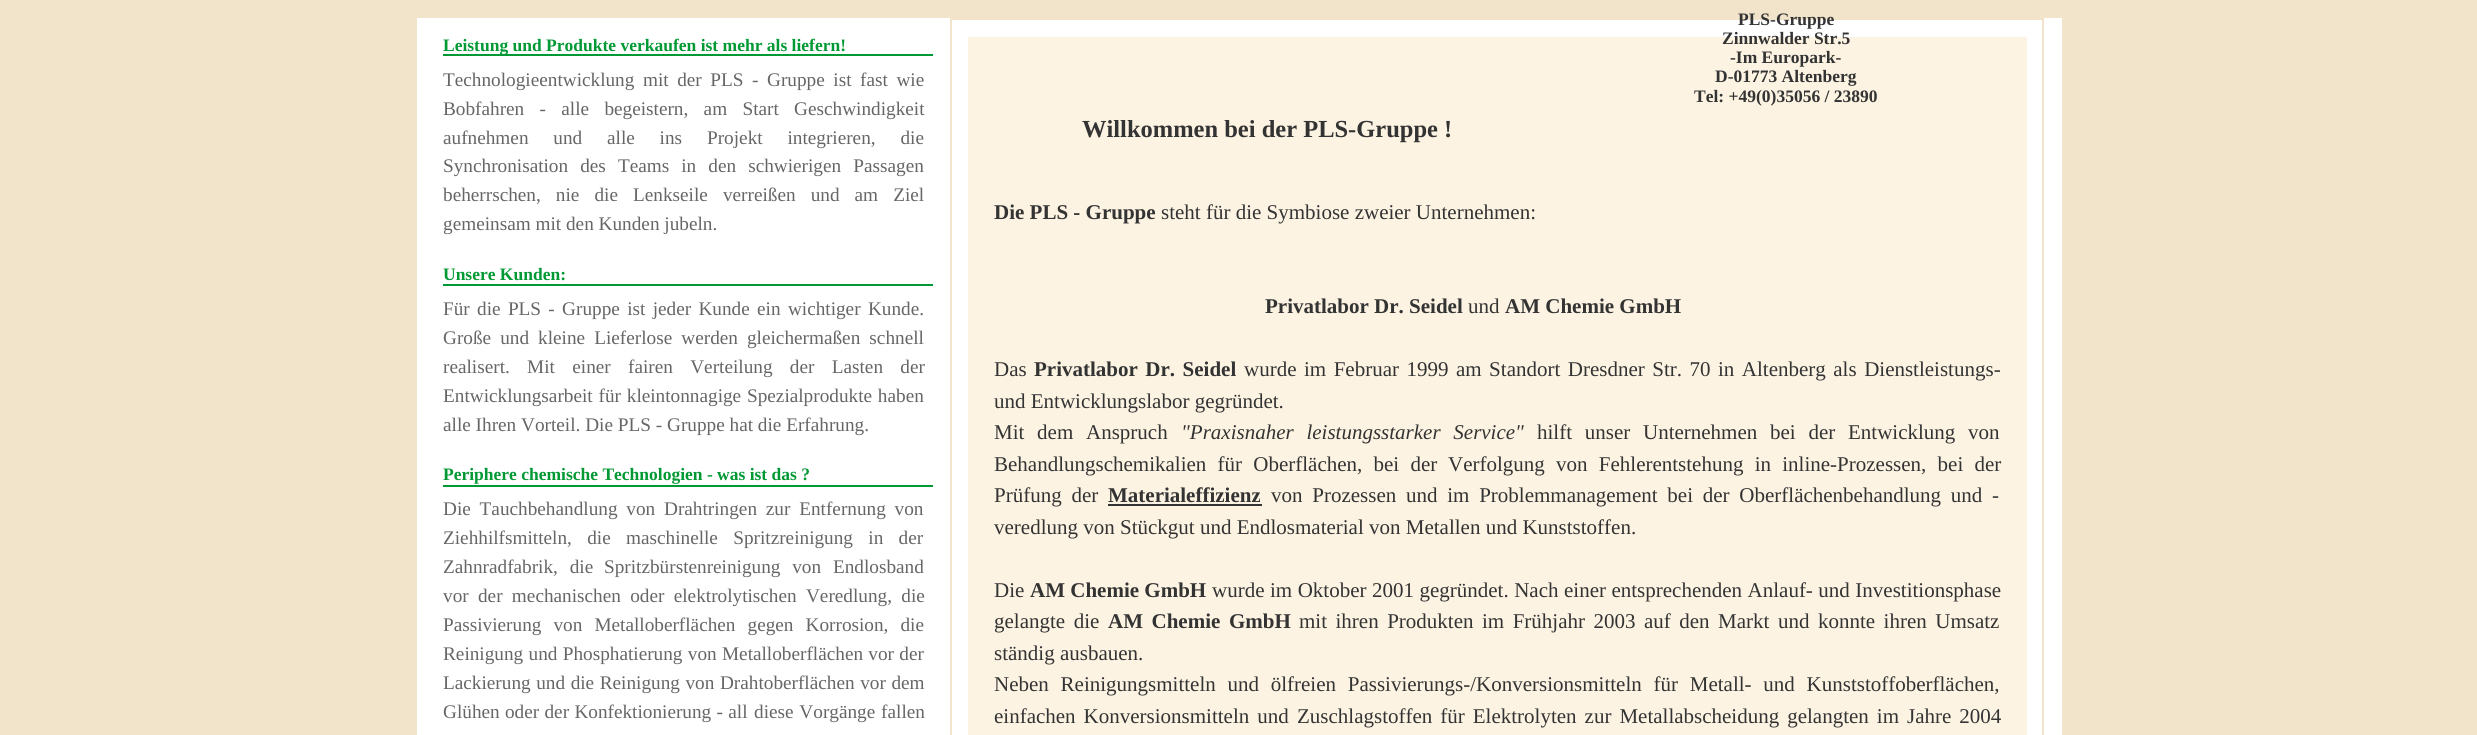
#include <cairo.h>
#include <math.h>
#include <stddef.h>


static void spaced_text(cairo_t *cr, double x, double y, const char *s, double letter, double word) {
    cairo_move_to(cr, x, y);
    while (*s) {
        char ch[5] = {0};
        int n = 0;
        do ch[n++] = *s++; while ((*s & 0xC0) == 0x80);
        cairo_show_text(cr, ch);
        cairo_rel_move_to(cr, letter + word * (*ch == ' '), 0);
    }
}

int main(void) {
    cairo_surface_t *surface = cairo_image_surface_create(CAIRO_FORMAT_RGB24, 2477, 735);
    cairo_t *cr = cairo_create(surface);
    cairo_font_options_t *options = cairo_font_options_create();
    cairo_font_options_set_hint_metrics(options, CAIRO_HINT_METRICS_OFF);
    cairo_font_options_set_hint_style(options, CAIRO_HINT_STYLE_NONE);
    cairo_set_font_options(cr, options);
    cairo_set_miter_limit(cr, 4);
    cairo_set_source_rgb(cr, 0.945, 0.894, 0.796);
    cairo_paint(cr);
    cairo_set_source_rgb(cr, 1, 1, 1);
    cairo_rectangle(cr, 417, 18, 1645, 717);
    cairo_fill(cr);
    cairo_rectangle(cr, 951, 19, 1092, 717);
    cairo_set_source_rgb(cr, 0.945, 0.894, 0.796);
    cairo_stroke(cr);
    cairo_select_font_face(cr, "Liberation Serif", CAIRO_FONT_SLANT_NORMAL, CAIRO_FONT_WEIGHT_BOLD);
    cairo_set_font_size(cr, 17.5);
    cairo_set_source_rgb(cr, 0.2, 0.2, 0.2);
    cairo_move_to(cr, 1738, 25);
    cairo_show_text(cr, "PLS-Gruppe");
    cairo_set_source_rgb(cr, 0.988, 0.953, 0.886);
    cairo_rectangle(cr, 968, 37, 1059, 698);
    cairo_fill(cr);
    cairo_set_source_rgb(cr, 0.2, 0.2, 0.2);
    cairo_move_to(cr, 1722, 44);
    cairo_show_text(cr, "Zinnwalder Str.5");
    cairo_move_to(cr, 1730, 63);
    cairo_show_text(cr, "-Im Europark-");
    cairo_move_to(cr, 1715, 82);
    cairo_show_text(cr, "D-01773 Altenberg");
    cairo_move_to(cr, 1694, 102);
    cairo_show_text(cr, "Tel: +49(0)35056 / 23890");
    cairo_set_source_rgb(cr, 0, 0.6, 0.2);
    cairo_rectangle(cr, 443, 54, 490, 2);
    cairo_fill(cr);
    cairo_move_to(cr, 443, 51);
    cairo_show_text(cr, "Leistung und Produkte verkaufen ist mehr als liefern!");
    cairo_select_font_face(cr, "Liberation Serif", CAIRO_FONT_SLANT_NORMAL, CAIRO_FONT_WEIGHT_NORMAL);
    cairo_set_font_size(cr, 19.25);
    cairo_set_source_rgb(cr, 0.4, 0.4, 0.4);
    spaced_text(cr, 443, 86, "Technologieentwicklung mit der PLS - Gruppe ist fast wie", 0, 3.75);
    spaced_text(cr, 443, 115, "Bobfahren - alle begeistern, am Start Geschwindigkeit", 0, 10.5);
    spaced_text(cr, 443, 144, "aufnehmen und alle ins", 0, 20);
    spaced_text(cr, 707, 144, "Projekt integrieren, die", 0, 20);
    spaced_text(cr, 443, 172, "Synchronisation des Teams in den schwierigen Passagen", 0, 7.25);
    spaced_text(cr, 443, 201, "beherrschen, nie die Lenkseile verreißen und am Ziel", 0, 10.25);
    cairo_move_to(cr, 443, 230);
    cairo_show_text(cr, "gemeinsam mit den Kunden jubeln.");
    cairo_set_source_rgb(cr, 0, 0.6, 0.2);
    cairo_rectangle(cr, 443, 284, 490, 2);
    cairo_fill(cr);
    cairo_select_font_face(cr, "Liberation Serif", CAIRO_FONT_SLANT_NORMAL, CAIRO_FONT_WEIGHT_BOLD);
    cairo_set_font_size(cr, 17.5);
    cairo_move_to(cr, 443, 280);
    cairo_show_text(cr, "Unsere Kunden:");
    cairo_select_font_face(cr, "Liberation Serif", CAIRO_FONT_SLANT_NORMAL, CAIRO_FONT_WEIGHT_NORMAL);
    cairo_set_font_size(cr, 19.25);
    cairo_set_source_rgb(cr, 0.4, 0.4, 0.4);
    spaced_text(cr, 443, 315, "Für die PLS - Gruppe ist jeder Kunde ein wichtiger Kunde.", 0, 2.5);
    spaced_text(cr, 443, 344, "Große und kleine Lieferlose werden gleichermaßen schnell", 0, 4.25);
    spaced_text(cr, 443, 373, "realisert. Mit einer fairen Verteilung der Lasten der", 0, 12.5);
    spaced_text(cr, 443, 402, "Entwicklungsarbeit für kleintonnagige Spezialprodukte haben", 0, 1);
    cairo_move_to(cr, 443, 431);
    cairo_show_text(cr, "alle Ihren Vorteil. Die PLS - Gruppe hat die Erfahrung.");
    cairo_set_source_rgb(cr, 0, 0.6, 0.2);
    cairo_rectangle(cr, 443, 485, 490, 2);
    cairo_fill(cr);
    cairo_select_font_face(cr, "Liberation Serif", CAIRO_FONT_SLANT_NORMAL, CAIRO_FONT_WEIGHT_BOLD);
    cairo_set_font_size(cr, 17.5);
    cairo_move_to(cr, 443, 480);
    cairo_show_text(cr, "Periphere chemische Technologien - was ist das ?");
    cairo_select_font_face(cr, "Liberation Serif", CAIRO_FONT_SLANT_NORMAL, CAIRO_FONT_WEIGHT_NORMAL);
    cairo_set_font_size(cr, 19.25);
    cairo_set_source_rgb(cr, 0.4, 0.4, 0.4);
    spaced_text(cr, 443, 515, "Die Tauchbehandlung von Drahtringen zur Entfernung von", 0, 4);
    spaced_text(cr, 443, 544, "Ziehhilfsmitteln, die maschinelle Spritzreinigung in der", 0, 10.5);
    spaced_text(cr, 443, 573, "Zahnradfabrik, die", 0, 7);
    spaced_text(cr, 604, 573, "Spritzbürstenreinigung von Endlosband", 0, 7);
    spaced_text(cr, 443, 602, "vor der mechanischen oder elektrolytischen Veredlung, die", 0, 4.5);
    spaced_text(cr, 443, 631, "Passivierung von Metalloberflächen gegen Korrosion, die", 0, 7.25);
    spaced_text(cr, 443, 660, "Reinigung und Phosphatierung von Metalloberflächen vor der", 0, 0.5);
    spaced_text(cr, 443, 689, "Lackierung und die Reinigung von Drahtoberflächen vor dem", 0, 0.75);
    spaced_text(cr, 443, 718, "Glühen oder der Konfektionierung - all", 0, 0.5);
    spaced_text(cr, 754, 718, "diese Vorgänge fallen", 0, 1);
    cairo_select_font_face(cr, "Liberation Serif", CAIRO_FONT_SLANT_NORMAL, CAIRO_FONT_WEIGHT_BOLD);
    cairo_set_font_size(cr, 24.5);
    cairo_set_source_rgb(cr, 0.2, 0.2, 0.2);
    cairo_move_to(cr, 1082, 137);
    cairo_show_text(cr, "Willkommen bei der PLS-Gruppe !");
    cairo_set_font_size(cr, 21);
    cairo_move_to(cr, 994, 219);
    cairo_show_text(cr, "Die PLS - Gruppe");
    cairo_select_font_face(cr, "Liberation Serif", CAIRO_FONT_SLANT_NORMAL, CAIRO_FONT_WEIGHT_NORMAL);
    cairo_move_to(cr, 1161, 219);
    cairo_show_text(cr, "steht für die Symbiose zweier Unternehmen:");
    cairo_select_font_face(cr, "Liberation Serif", CAIRO_FONT_SLANT_NORMAL, CAIRO_FONT_WEIGHT_BOLD);
    cairo_move_to(cr, 1265, 313);
    cairo_show_text(cr, "Privatlabor Dr. Seidel");
    cairo_select_font_face(cr, "Liberation Serif", CAIRO_FONT_SLANT_NORMAL, CAIRO_FONT_WEIGHT_NORMAL);
    cairo_move_to(cr, 1468, 313);
    cairo_show_text(cr, "und");
    cairo_select_font_face(cr, "Liberation Serif", CAIRO_FONT_SLANT_NORMAL, CAIRO_FONT_WEIGHT_BOLD);
    cairo_move_to(cr, 1505, 313);
    cairo_show_text(cr, "AM Chemie GmbH");
    cairo_select_font_face(cr, "Liberation Serif", CAIRO_FONT_SLANT_NORMAL, CAIRO_FONT_WEIGHT_NORMAL);
    cairo_move_to(cr, 994, 376);
    cairo_show_text(cr, "Das");
    cairo_select_font_face(cr, "Liberation Serif", CAIRO_FONT_SLANT_NORMAL, CAIRO_FONT_WEIGHT_BOLD);
    spaced_text(cr, 1034, 376, "Privatlabor Dr. Seidel", 0, 2.25);
    cairo_select_font_face(cr, "Liberation Serif", CAIRO_FONT_SLANT_NORMAL, CAIRO_FONT_WEIGHT_NORMAL);
    spaced_text(cr, 1244, 376, "wurde im Februar 1999 am Standort Dresdner Str. 70 in Altenberg als Dienstleistungs-", 0, 2.25);
    cairo_move_to(cr, 994, 408);
    cairo_show_text(cr, "und Entwicklungslabor gegründet.");
    spaced_text(cr, 994, 439, "Mit dem Anspruch", 0, 7.5);
    cairo_select_font_face(cr, "Liberation Serif", CAIRO_FONT_SLANT_ITALIC, CAIRO_FONT_WEIGHT_NORMAL);
    spaced_text(cr, 1181, 439, "\"Praxisnaher leistungsstarker Service\"", 0, 7.5);
    cairo_select_font_face(cr, "Liberation Serif", CAIRO_FONT_SLANT_NORMAL, CAIRO_FONT_WEIGHT_NORMAL);
    spaced_text(cr, 1537, 439, "hilft unser Unternehmen bei der Entwicklung von", 0, 7.5);
    spaced_text(cr, 994, 471, "Behandlungschemikalien für Oberflächen, bei der", 0, 6);
    spaced_text(cr, 1448, 471, "Verfolgung von Fehlerentstehung in inline-Prozessen, bei der", 0, 6);
    spaced_text(cr, 994, 502, "Prüfung der", 0, 4.5);
    cairo_select_font_face(cr, "Liberation Serif", CAIRO_FONT_SLANT_NORMAL, CAIRO_FONT_WEIGHT_BOLD);
    cairo_move_to(cr, 1108, 502);
    cairo_show_text(cr, "Materialeffizienz");
    cairo_rectangle(cr, 1108, 504, 154, 2);
    cairo_fill(cr);
    cairo_select_font_face(cr, "Liberation Serif", CAIRO_FONT_SLANT_NORMAL, CAIRO_FONT_WEIGHT_NORMAL);
    spaced_text(cr, 1271, 502, "von Prozessen und im Problemmanagement bei der Oberflächenbehandlung und -", 0, 4.5);
    cairo_move_to(cr, 994, 534);
    cairo_show_text(cr, "veredlung von Stückgut und Endlosmaterial von Metallen und Kunststoffen.");
    cairo_move_to(cr, 994, 597);
    cairo_show_text(cr, "Die");
    cairo_select_font_face(cr, "Liberation Serif", CAIRO_FONT_SLANT_NORMAL, CAIRO_FONT_WEIGHT_BOLD);
    cairo_move_to(cr, 1030, 597);
    cairo_show_text(cr, "AM Chemie GmbH");
    cairo_select_font_face(cr, "Liberation Serif", CAIRO_FONT_SLANT_NORMAL, CAIRO_FONT_WEIGHT_NORMAL);
    spaced_text(cr, 1212, 597, "wurde im Oktober 2001 gegründet. Nach einer entsprechenden Anlauf- und Investitionsphase", 0, 0.25);
    spaced_text(cr, 994, 628, "gelangte die", 0, 3.25);
    cairo_select_font_face(cr, "Liberation Serif", CAIRO_FONT_SLANT_NORMAL, CAIRO_FONT_WEIGHT_BOLD);
    spaced_text(cr, 1108, 628, "AM Chemie", 0, 3.25);
    cairo_move_to(cr, 1229, 628);
    cairo_show_text(cr, "GmbH");
    cairo_select_font_face(cr, "Liberation Serif", CAIRO_FONT_SLANT_NORMAL, CAIRO_FONT_WEIGHT_NORMAL);
    spaced_text(cr, 1299, 628, "mit ihren Produkten im Frühjahr 2003 auf den Markt und konnte ihren Umsatz", 0, 3.25);
    cairo_move_to(cr, 994, 660);
    cairo_show_text(cr, "ständig ausbauen.");
    spaced_text(cr, 994, 691, "Neben Reinigungsmitteln und ölfreien Passivierungs-/Konversionsmitteln für Metall- und Kunststoffoberflächen,", 0, 6.5);
    spaced_text(cr, 994, 723, "einfachen Konversionsmitteln und", 0, 2.75);
    spaced_text(cr, 1297, 723, "Zuschlagstoffen für Elektrolyten zur Metallabscheidung gelangten im Jahre 2004", 0, 2.75);
    cairo_surface_write_to_png(surface, "page.png");
    cairo_font_options_destroy(options);
    cairo_destroy(cr);
    cairo_surface_destroy(surface);
    return 0;
}
